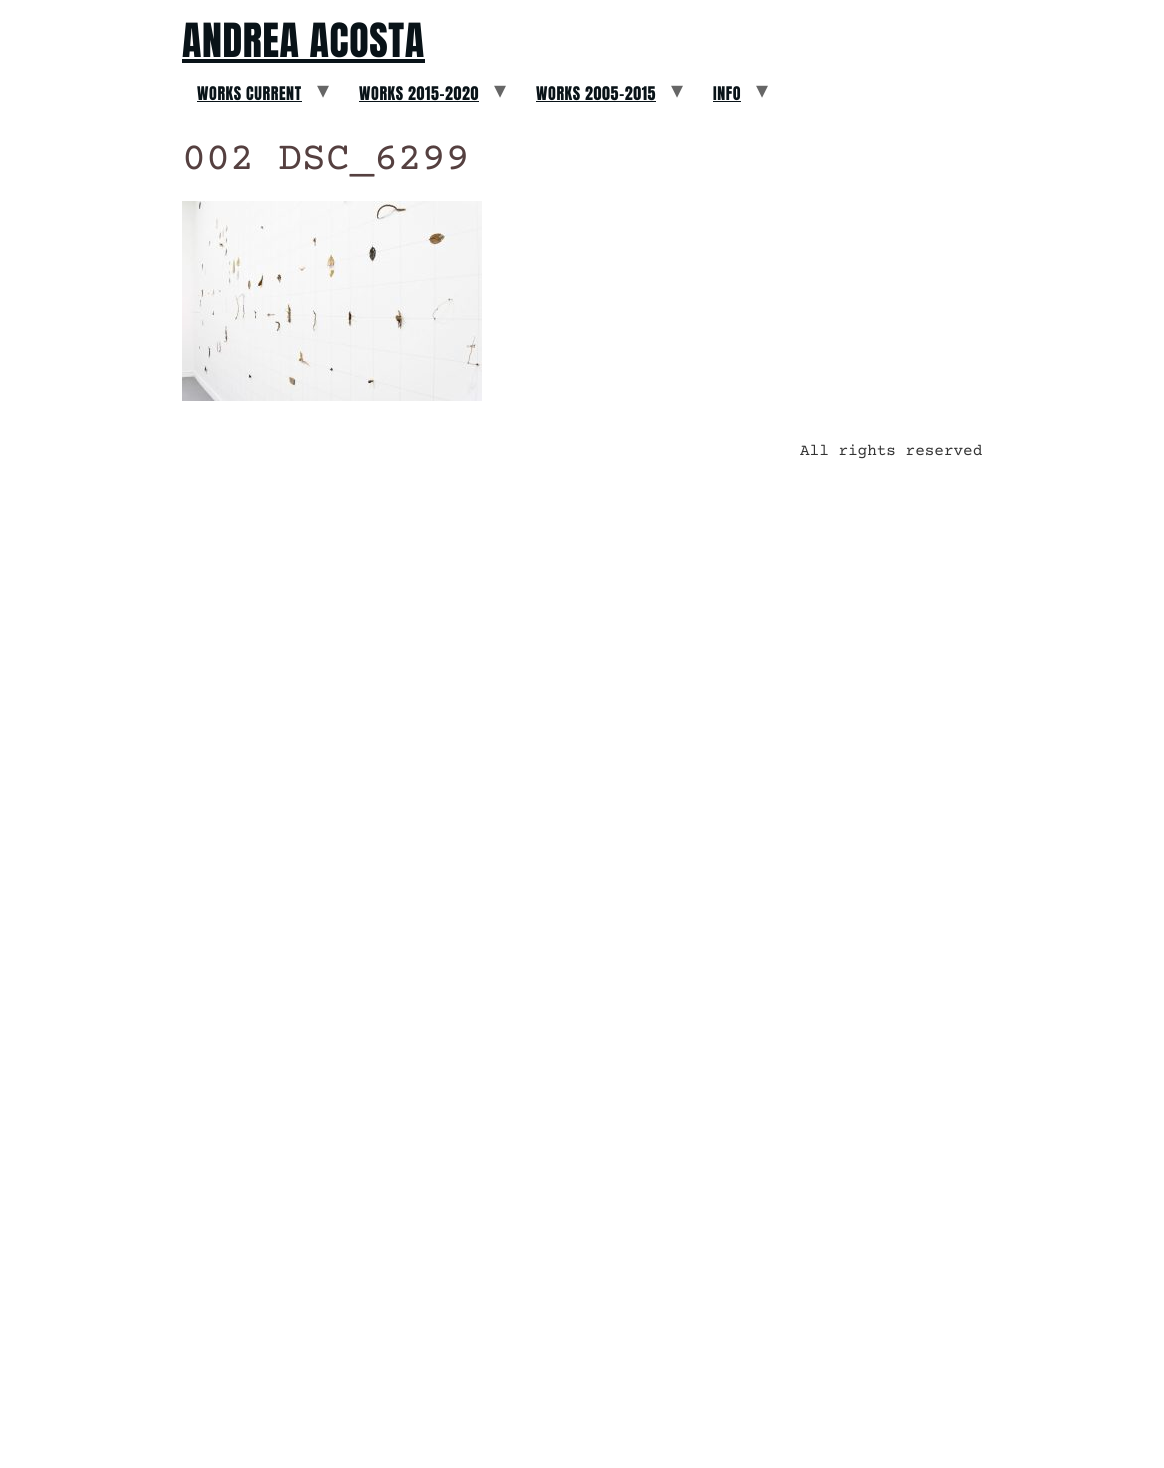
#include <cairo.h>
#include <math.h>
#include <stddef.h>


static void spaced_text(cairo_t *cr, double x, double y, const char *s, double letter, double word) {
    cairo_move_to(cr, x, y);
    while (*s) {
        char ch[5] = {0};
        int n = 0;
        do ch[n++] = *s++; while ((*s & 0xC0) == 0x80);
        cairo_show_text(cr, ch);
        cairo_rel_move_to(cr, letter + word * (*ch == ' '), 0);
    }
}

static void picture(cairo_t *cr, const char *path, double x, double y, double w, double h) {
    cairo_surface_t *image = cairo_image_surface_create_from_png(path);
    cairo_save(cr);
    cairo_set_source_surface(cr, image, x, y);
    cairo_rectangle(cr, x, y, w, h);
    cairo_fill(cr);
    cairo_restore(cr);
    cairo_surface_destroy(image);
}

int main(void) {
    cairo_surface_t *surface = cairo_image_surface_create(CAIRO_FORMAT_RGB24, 1164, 1468);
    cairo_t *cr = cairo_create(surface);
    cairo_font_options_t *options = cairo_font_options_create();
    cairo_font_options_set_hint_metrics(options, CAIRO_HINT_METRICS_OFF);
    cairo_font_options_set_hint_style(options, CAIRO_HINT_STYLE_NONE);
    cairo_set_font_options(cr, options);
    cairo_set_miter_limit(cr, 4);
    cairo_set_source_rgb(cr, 1, 1, 1);
    cairo_paint(cr);
    cairo_select_font_face(cr, "Anton", CAIRO_FONT_SLANT_NORMAL, CAIRO_FONT_WEIGHT_NORMAL);
    cairo_set_font_size(cr, 40);
    cairo_set_source_rgb(cr, 0.039, 0.078, 0.094);
    spaced_text(cr, 182, 57, "ANDREA ACOSTA", 0.6, 0);
    cairo_rectangle(cr, 182, 59, 243, 4);
    cairo_fill(cr);
    cairo_set_font_size(cr, 16);
    spaced_text(cr, 197, 100, "WORKS CURRENT", 0.6, 0);
    cairo_rectangle(cr, 197, 101, 105, 1);
    cairo_fill(cr);
    cairo_select_font_face(cr, "DejaVu Sans", CAIRO_FONT_SLANT_NORMAL, CAIRO_FONT_WEIGHT_NORMAL);
    cairo_set_font_size(cr, 24);
    cairo_set_source_rgb(cr, 0.4, 0.4, 0.4);
    cairo_move_to(cr, 317, 98);
    cairo_show_text(cr, "▾");
    cairo_select_font_face(cr, "Anton", CAIRO_FONT_SLANT_NORMAL, CAIRO_FONT_WEIGHT_NORMAL);
    cairo_set_font_size(cr, 16);
    cairo_set_source_rgb(cr, 0.039, 0.078, 0.094);
    spaced_text(cr, 359, 100, "WORKS 2015-2020", 0.6, 0);
    cairo_rectangle(cr, 359, 101, 120, 1);
    cairo_fill(cr);
    cairo_select_font_face(cr, "DejaVu Sans", CAIRO_FONT_SLANT_NORMAL, CAIRO_FONT_WEIGHT_NORMAL);
    cairo_set_font_size(cr, 24);
    cairo_set_source_rgb(cr, 0.4, 0.4, 0.4);
    cairo_move_to(cr, 494, 98);
    cairo_show_text(cr, "▾");
    cairo_select_font_face(cr, "Anton", CAIRO_FONT_SLANT_NORMAL, CAIRO_FONT_WEIGHT_NORMAL);
    cairo_set_font_size(cr, 16);
    cairo_set_source_rgb(cr, 0.039, 0.078, 0.094);
    spaced_text(cr, 536, 100, "WORKS 2005-2015", 0.6, 0);
    cairo_rectangle(cr, 536, 101, 120, 1);
    cairo_fill(cr);
    cairo_select_font_face(cr, "DejaVu Sans", CAIRO_FONT_SLANT_NORMAL, CAIRO_FONT_WEIGHT_NORMAL);
    cairo_set_font_size(cr, 24);
    cairo_set_source_rgb(cr, 0.4, 0.4, 0.4);
    cairo_move_to(cr, 671, 98);
    cairo_show_text(cr, "▾");
    cairo_select_font_face(cr, "Anton", CAIRO_FONT_SLANT_NORMAL, CAIRO_FONT_WEIGHT_NORMAL);
    cairo_set_font_size(cr, 16);
    cairo_set_source_rgb(cr, 0.039, 0.078, 0.094);
    spaced_text(cr, 713, 100, "INFO", 0.6, 0);
    cairo_rectangle(cr, 713, 101, 28, 1);
    cairo_fill(cr);
    cairo_select_font_face(cr, "DejaVu Sans", CAIRO_FONT_SLANT_NORMAL, CAIRO_FONT_WEIGHT_NORMAL);
    cairo_set_font_size(cr, 24);
    cairo_set_source_rgb(cr, 0.4, 0.4, 0.4);
    cairo_move_to(cr, 756, 98);
    cairo_show_text(cr, "▾");
    cairo_select_font_face(cr, "Courier Prime", CAIRO_FONT_SLANT_NORMAL, CAIRO_FONT_WEIGHT_NORMAL);
    cairo_set_font_size(cr, 40);
    cairo_set_source_rgb(cr, 0.333, 0.251, 0.251);
    cairo_move_to(cr, 182, 169);
    cairo_show_text(cr, "002 DSC_6299");
    picture(cr, "img1.png", 182, 201, 300, 200);
    cairo_set_font_size(cr, 16);
    cairo_set_source_rgb(cr, 0.2, 0.2, 0.2);
    cairo_move_to(cr, 800, 455);
    cairo_show_text(cr, "All rights reserved");
    cairo_surface_write_to_png(surface, "page.png");
    cairo_font_options_destroy(options);
    cairo_destroy(cr);
    cairo_surface_destroy(surface);
    return 0;
}
